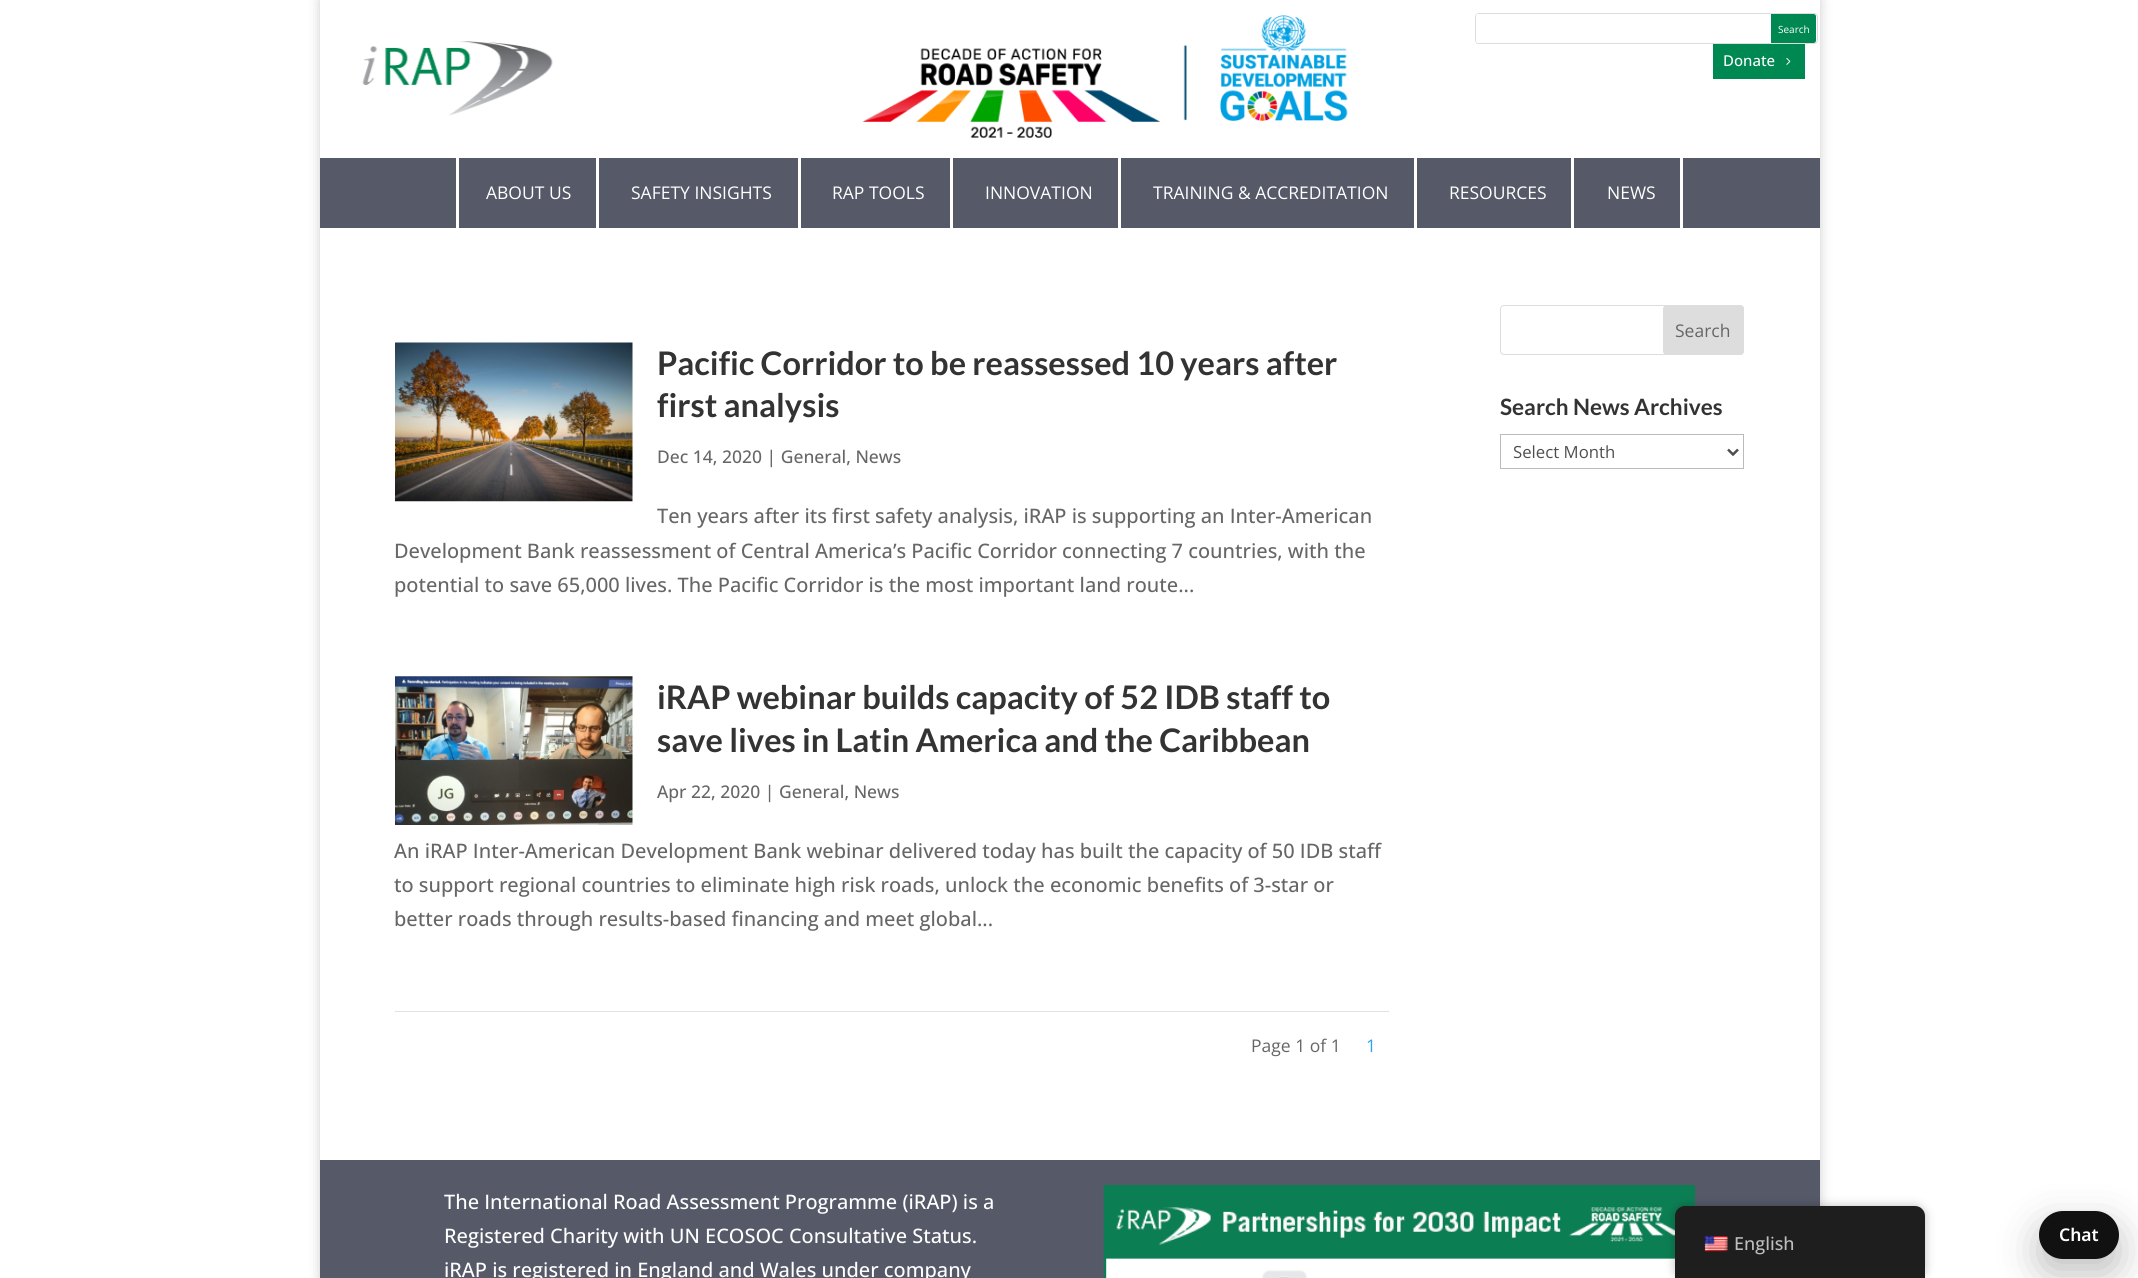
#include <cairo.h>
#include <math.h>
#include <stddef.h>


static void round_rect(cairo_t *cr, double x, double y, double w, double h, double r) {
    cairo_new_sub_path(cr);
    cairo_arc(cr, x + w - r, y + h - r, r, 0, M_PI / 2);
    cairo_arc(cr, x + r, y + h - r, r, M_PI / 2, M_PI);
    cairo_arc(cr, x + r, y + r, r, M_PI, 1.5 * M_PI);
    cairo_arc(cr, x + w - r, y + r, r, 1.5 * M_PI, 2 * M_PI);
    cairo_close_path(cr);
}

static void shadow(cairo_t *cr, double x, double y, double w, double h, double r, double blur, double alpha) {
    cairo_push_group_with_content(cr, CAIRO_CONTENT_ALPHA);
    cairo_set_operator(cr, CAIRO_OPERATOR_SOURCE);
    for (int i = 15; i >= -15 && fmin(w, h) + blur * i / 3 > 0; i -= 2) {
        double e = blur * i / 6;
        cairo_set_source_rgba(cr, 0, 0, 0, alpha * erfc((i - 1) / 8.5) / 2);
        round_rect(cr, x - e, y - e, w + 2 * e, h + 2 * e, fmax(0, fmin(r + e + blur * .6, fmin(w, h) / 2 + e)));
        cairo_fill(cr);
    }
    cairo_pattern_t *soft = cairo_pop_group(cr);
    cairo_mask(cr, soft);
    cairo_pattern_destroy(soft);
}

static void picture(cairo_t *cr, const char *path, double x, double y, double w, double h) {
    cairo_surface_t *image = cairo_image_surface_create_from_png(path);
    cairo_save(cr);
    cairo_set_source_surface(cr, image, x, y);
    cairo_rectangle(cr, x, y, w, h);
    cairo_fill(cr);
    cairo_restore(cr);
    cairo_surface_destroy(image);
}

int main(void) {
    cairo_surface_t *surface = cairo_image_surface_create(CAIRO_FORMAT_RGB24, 2138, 1278);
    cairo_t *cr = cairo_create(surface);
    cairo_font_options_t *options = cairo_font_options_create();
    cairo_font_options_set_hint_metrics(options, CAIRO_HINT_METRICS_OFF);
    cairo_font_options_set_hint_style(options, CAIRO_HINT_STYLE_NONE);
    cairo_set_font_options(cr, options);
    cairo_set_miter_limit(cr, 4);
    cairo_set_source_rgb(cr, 1, 1, 1);
    cairo_paint(cr);
    cairo_save(cr);
    cairo_set_fill_rule(cr, CAIRO_FILL_RULE_EVEN_ODD);
    cairo_new_path(cr);
    cairo_move_to(cr, 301, 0);
    cairo_line_to(cr, 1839, 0);
    cairo_line_to(cr, 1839, 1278);
    cairo_line_to(cr, 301, 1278);
    cairo_close_path(cr);
    cairo_move_to(cr, 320, 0);
    cairo_line_to(cr, 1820, 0);
    cairo_line_to(cr, 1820, 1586);
    cairo_line_to(cr, 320, 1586);
    cairo_close_path(cr);
    cairo_clip(cr);
    cairo_set_source_rgb(cr, 0, 0, 0);
    shadow(cr, 320, 0, 1500, 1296, 0, 6, 0.2);
    cairo_restore(cr);
    picture(cr, "img1.png", 362, 41, 191, 75);
    picture(cr, "img2.png", 862, 15, 486, 124);
    round_rect(cr, 1475.5, 13.5, 342, 30, 3.5);
    cairo_set_source_rgb(cr, 0.867, 0.867, 0.867);
    cairo_set_line_width(cr, 1);
    cairo_stroke(cr);
    cairo_set_source_rgb(cr, 1, 1, 1);
    cairo_new_path(cr);
    cairo_move_to(cr, 1478.5, 14);
    cairo_line_to(cr, 1771, 14);
    cairo_line_to(cr, 1771, 43);
    cairo_line_to(cr, 1478.5, 43);
    cairo_curve_to(cr, 1477, 43, 1476, 42, 1476, 40.5);
    cairo_line_to(cr, 1476, 16.5);
    cairo_curve_to(cr, 1476, 15, 1477, 14, 1478.5, 14);
    cairo_close_path(cr);
    cairo_fill(cr);
    cairo_set_source_rgb(cr, 0, 0.533, 0.322);
    cairo_new_path(cr);
    cairo_move_to(cr, 1771, 14);
    cairo_line_to(cr, 1813.5, 14);
    cairo_curve_to(cr, 1815, 14, 1816, 15, 1816, 16.5);
    cairo_line_to(cr, 1816, 40.5);
    cairo_curve_to(cr, 1816, 42, 1815, 43, 1813.5, 43);
    cairo_line_to(cr, 1771, 43);
    cairo_close_path(cr);
    cairo_fill(cr);
    cairo_select_font_face(cr, "Open Sans", CAIRO_FONT_SLANT_NORMAL, CAIRO_FONT_WEIGHT_NORMAL);
    cairo_set_font_size(cr, 10);
    cairo_set_source_rgb(cr, 1, 1, 1);
    cairo_move_to(cr, 1778, 33);
    cairo_show_text(cr, "Search");
    cairo_set_source_rgb(cr, 0, 0.533, 0.322);
    cairo_rectangle(cr, 1713, 44, 92, 35);
    cairo_fill(cr);
    cairo_select_font_face(cr, "Open Sans Medium", CAIRO_FONT_SLANT_NORMAL, CAIRO_FONT_WEIGHT_NORMAL);
    cairo_set_font_size(cr, 15);
    cairo_set_source_rgb(cr, 1, 1, 1);
    cairo_move_to(cr, 1723, 66);
    cairo_show_text(cr, "Donate");
    picture(cr, "img3.png", 1786, 57, 5, 8);
    cairo_set_source_rgb(cr, 0.337, 0.349, 0.408);
    cairo_rectangle(cr, 320, 158, 1500, 70);
    cairo_fill(cr);
    cairo_set_source_rgb(cr, 1, 1, 1);
    cairo_rectangle(cr, 596, 158, 3, 70);
    cairo_fill(cr);
    cairo_rectangle(cr, 456, 158, 3, 70);
    cairo_fill(cr);
    cairo_select_font_face(cr, "Open Sans", CAIRO_FONT_SLANT_NORMAL, CAIRO_FONT_WEIGHT_NORMAL);
    cairo_set_font_size(cr, 17.5);
    cairo_move_to(cr, 486, 199);
    cairo_show_text(cr, "ABOUT US");
    cairo_rectangle(cr, 798, 158, 3, 70);
    cairo_fill(cr);
    cairo_move_to(cr, 631, 199);
    cairo_show_text(cr, "SAFETY INSIGHTS");
    cairo_rectangle(cr, 950, 158, 3, 70);
    cairo_fill(cr);
    cairo_move_to(cr, 832, 199);
    cairo_show_text(cr, "RAP TOOLS");
    cairo_rectangle(cr, 1118, 158, 3, 70);
    cairo_fill(cr);
    cairo_move_to(cr, 985, 199);
    cairo_show_text(cr, "INNOVATION");
    cairo_rectangle(cr, 1414, 158, 3, 70);
    cairo_fill(cr);
    cairo_move_to(cr, 1153, 199);
    cairo_show_text(cr, "TRAINING & ACCREDITATION");
    cairo_rectangle(cr, 1571, 158, 3, 70);
    cairo_fill(cr);
    cairo_move_to(cr, 1449, 199);
    cairo_show_text(cr, "RESOURCES");
    cairo_rectangle(cr, 1680, 158, 3, 70);
    cairo_fill(cr);
    cairo_move_to(cr, 1607, 199);
    cairo_show_text(cr, "NEWS");
    picture(cr, "img4.png", 395, 342, 238, 160);
    cairo_select_font_face(cr, "Lato", CAIRO_FONT_SLANT_NORMAL, CAIRO_FONT_WEIGHT_BOLD);
    cairo_set_font_size(cr, 32.5);
    cairo_set_source_rgb(cr, 0.2, 0.2, 0.2);
    cairo_move_to(cr, 657, 375);
    cairo_show_text(cr, "Pacific Corridor to be reassessed 10 years after");
    cairo_move_to(cr, 657, 417);
    cairo_show_text(cr, "first analysis");
    cairo_select_font_face(cr, "Open Sans Medium", CAIRO_FONT_SLANT_NORMAL, CAIRO_FONT_WEIGHT_NORMAL);
    cairo_set_font_size(cr, 17.5);
    cairo_set_source_rgb(cr, 0.4, 0.4, 0.4);
    cairo_move_to(cr, 657, 463);
    cairo_show_text(cr, "Dec 14, 2020 | General, News");
    cairo_set_font_size(cr, 20);
    cairo_move_to(cr, 657, 523);
    cairo_show_text(cr, "Ten years after its first safety analysis, iRAP is supporting an Inter-American");
    cairo_move_to(cr, 394, 558);
    cairo_show_text(cr, "Development Bank reassessment of Central America’s Pacific Corridor connecting 7 countries, with the");
    cairo_move_to(cr, 394, 592);
    cairo_show_text(cr, "potential to save 65,000 lives. The Pacific Corridor is the most important land route...");
    picture(cr, "img5.png", 395, 676, 238, 149);
    cairo_select_font_face(cr, "Lato", CAIRO_FONT_SLANT_NORMAL, CAIRO_FONT_WEIGHT_BOLD);
    cairo_set_font_size(cr, 32.5);
    cairo_set_source_rgb(cr, 0.2, 0.2, 0.2);
    cairo_move_to(cr, 657, 709);
    cairo_show_text(cr, "iRAP webinar builds capacity of 52 IDB staff to");
    cairo_move_to(cr, 657, 752);
    cairo_show_text(cr, "save lives in Latin America and the Caribbean");
    cairo_select_font_face(cr, "Open Sans Medium", CAIRO_FONT_SLANT_NORMAL, CAIRO_FONT_WEIGHT_NORMAL);
    cairo_set_font_size(cr, 17.5);
    cairo_set_source_rgb(cr, 0.4, 0.4, 0.4);
    cairo_move_to(cr, 657, 798);
    cairo_show_text(cr, "Apr 22, 2020 | General, News");
    cairo_set_font_size(cr, 20);
    cairo_move_to(cr, 394, 858);
    cairo_show_text(cr, "An iRAP Inter-American Development Bank webinar delivered today has built the capacity of 50 IDB staff");
    cairo_move_to(cr, 394, 892);
    cairo_show_text(cr, "to support regional countries to eliminate high risk roads, unlock the economic benefits of 3-star or");
    cairo_move_to(cr, 394, 926);
    cairo_show_text(cr, "better roads through results-based financing and meet global...");
    cairo_set_source_rgb(cr, 0.886, 0.886, 0.886);
    cairo_rectangle(cr, 395, 1011, 994, 1);
    cairo_fill(cr);
    cairo_select_font_face(cr, "Open Sans", CAIRO_FONT_SLANT_NORMAL, CAIRO_FONT_WEIGHT_NORMAL);
    cairo_set_font_size(cr, 17.5);
    cairo_set_source_rgb(cr, 0.4, 0.4, 0.4);
    cairo_move_to(cr, 1251, 1052);
    cairo_show_text(cr, "Page 1 of 1");
    cairo_set_source_rgb(cr, 0.18, 0.639, 0.949);
    cairo_move_to(cr, 1366, 1052);
    cairo_show_text(cr, "1");
    round_rect(cr, 1500.5, 305.5, 243, 49, 3.5);
    cairo_set_source_rgb(cr, 0.867, 0.867, 0.867);
    cairo_stroke(cr);
    round_rect(cr, 1663.5, 305.5, 80, 49, 3.5);
    cairo_fill_preserve(cr);
    cairo_stroke(cr);
    cairo_set_source_rgb(cr, 0.4, 0.4, 0.4);
    cairo_move_to(cr, 1675, 337);
    cairo_show_text(cr, "Search");
    cairo_select_font_face(cr, "Lato", CAIRO_FONT_SLANT_NORMAL, CAIRO_FONT_WEIGHT_BOLD);
    cairo_set_font_size(cr, 22.5);
    cairo_set_source_rgb(cr, 0.2, 0.2, 0.2);
    cairo_move_to(cr, 1500, 415);
    cairo_show_text(cr, "Search News Archives");
    cairo_rectangle(cr, 1500.5, 434.5, 243, 34);
    cairo_set_source_rgb(cr, 0.733, 0.733, 0.733);
    cairo_stroke(cr);
    cairo_new_path(cr);
    cairo_move_to(cr, 1728, 449.5);
    cairo_line_to(cr, 1733, 454.5);
    cairo_line_to(cr, 1738, 449.5);
    cairo_set_source_rgb(cr, 0.306, 0.306, 0.306);
    cairo_set_line_width(cr, 2.5);
    cairo_stroke(cr);
    cairo_select_font_face(cr, "Open Sans", CAIRO_FONT_SLANT_NORMAL, CAIRO_FONT_WEIGHT_NORMAL);
    cairo_set_font_size(cr, 16.75);
    cairo_move_to(cr, 1513, 458);
    cairo_show_text(cr, "Select Month");
    cairo_set_source_rgb(cr, 0.337, 0.349, 0.408);
    cairo_rectangle(cr, 320, 1160, 1500, 118);
    cairo_fill(cr);
    cairo_select_font_face(cr, "Open Sans Medium", CAIRO_FONT_SLANT_NORMAL, CAIRO_FONT_WEIGHT_NORMAL);
    cairo_set_font_size(cr, 20);
    cairo_set_source_rgb(cr, 1, 1, 1);
    cairo_move_to(cr, 444, 1209);
    cairo_show_text(cr, "The International Road Assessment Programme (iRAP) is a");
    cairo_move_to(cr, 444, 1243);
    cairo_show_text(cr, "Registered Charity with UN ECOSOC Consultative Status.");
    cairo_move_to(cr, 444, 1277);
    cairo_show_text(cr, "iRAP is registered in England and Wales under company");
    picture(cr, "img6.png", 1103, 1185, 592, 93);
    cairo_set_source_rgb(cr, 0, 0, 0);
    shadow(cr, 2039, 1226, 80, 48, 24, 20, 0.25);
    cairo_set_source_rgb(cr, 0.067, 0.067, 0.067);
    round_rect(cr, 2039, 1211, 80, 48, 24);
    cairo_fill(cr);
    cairo_select_font_face(cr, "Noto Sans SemiBold", CAIRO_FONT_SLANT_NORMAL, CAIRO_FONT_WEIGHT_NORMAL);
    cairo_set_font_size(cr, 17.5);
    cairo_set_source_rgb(cr, 1, 1, 1);
    cairo_move_to(cr, 2059, 1241);
    cairo_show_text(cr, "Chat");
    cairo_set_source_rgb(cr, 0, 0, 0);
    shadow(cr, 1675, 1206, 250, 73, 10, 5, 0.25);
    cairo_set_source_rgb(cr, 0.118, 0.118, 0.118);
    cairo_new_path(cr);
    cairo_move_to(cr, 1685, 1206);
    cairo_line_to(cr, 1915, 1206);
    cairo_curve_to(cr, 1920.5, 1206, 1925, 1210.5, 1925, 1216);
    cairo_line_to(cr, 1925, 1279);
    cairo_line_to(cr, 1675, 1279);
    cairo_line_to(cr, 1675, 1216);
    cairo_curve_to(cr, 1675, 1210.5, 1679.5, 1206, 1685, 1206);
    cairo_close_path(cr);
    cairo_fill(cr);
    picture(cr, "img7.png", 1704, 1236, 24, 16);
    cairo_select_font_face(cr, "Open Sans Medium", CAIRO_FONT_SLANT_NORMAL, CAIRO_FONT_WEIGHT_NORMAL);
    cairo_set_font_size(cr, 18);
    cairo_set_source_rgb(cr, 0.741, 0.741, 0.741);
    cairo_move_to(cr, 1734, 1250);
    cairo_show_text(cr, "English");
    cairo_surface_write_to_png(surface, "page.png");
    cairo_font_options_destroy(options);
    cairo_destroy(cr);
    cairo_surface_destroy(surface);
    return 0;
}
